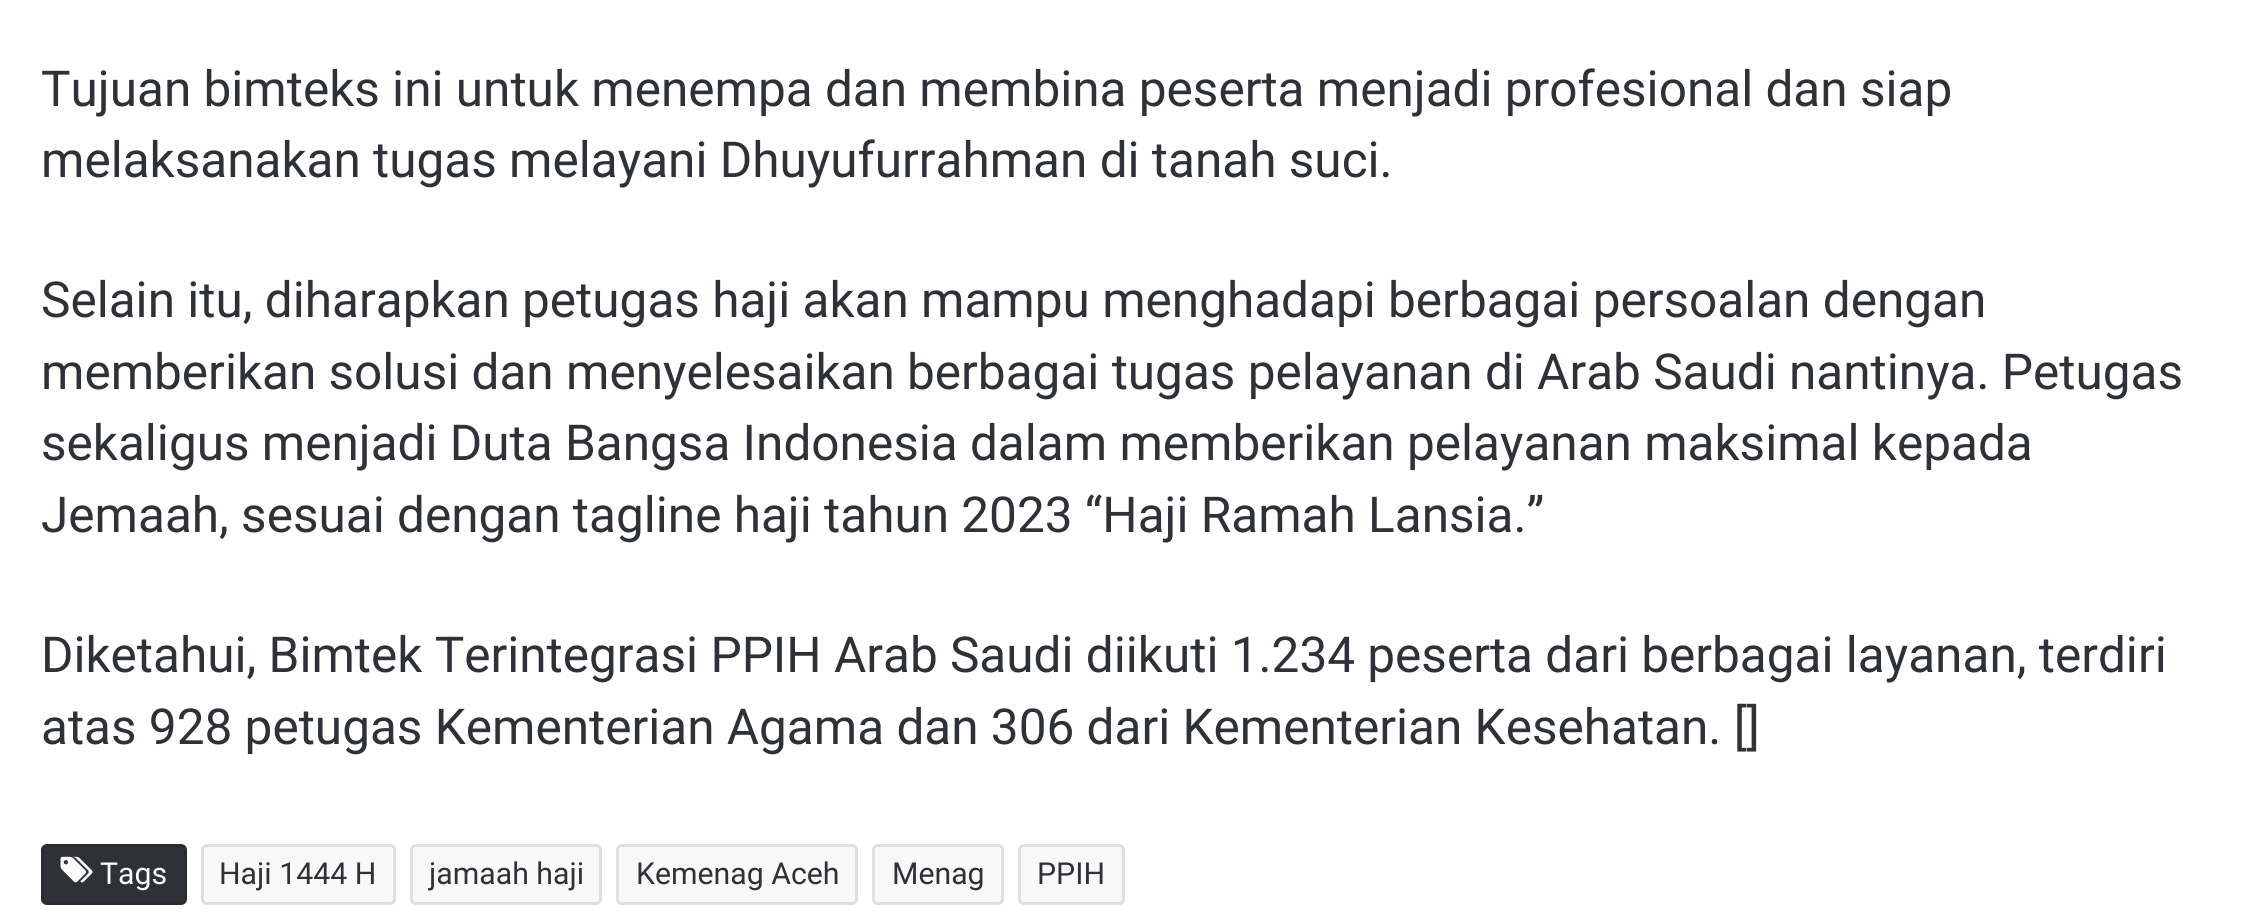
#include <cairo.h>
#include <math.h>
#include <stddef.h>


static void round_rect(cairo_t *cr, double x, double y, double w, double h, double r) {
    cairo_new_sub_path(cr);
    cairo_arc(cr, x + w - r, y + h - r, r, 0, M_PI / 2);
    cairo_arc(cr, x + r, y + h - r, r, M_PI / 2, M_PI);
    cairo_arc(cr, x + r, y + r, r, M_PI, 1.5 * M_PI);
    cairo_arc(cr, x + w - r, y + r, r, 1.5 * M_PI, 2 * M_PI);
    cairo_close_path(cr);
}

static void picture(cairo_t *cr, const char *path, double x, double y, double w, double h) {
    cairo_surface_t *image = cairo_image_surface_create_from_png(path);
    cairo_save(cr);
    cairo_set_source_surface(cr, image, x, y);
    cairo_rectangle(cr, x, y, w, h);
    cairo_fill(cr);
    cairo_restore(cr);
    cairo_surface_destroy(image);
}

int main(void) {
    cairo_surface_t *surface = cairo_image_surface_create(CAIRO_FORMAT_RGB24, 2256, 913);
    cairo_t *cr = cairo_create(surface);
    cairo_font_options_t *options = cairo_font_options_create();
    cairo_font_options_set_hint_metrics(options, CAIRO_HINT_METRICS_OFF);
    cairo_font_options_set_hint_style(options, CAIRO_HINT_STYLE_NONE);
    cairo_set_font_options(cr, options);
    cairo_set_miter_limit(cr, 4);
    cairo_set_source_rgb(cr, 1, 1, 1);
    cairo_paint(cr);
    cairo_select_font_face(cr, "Roboto", CAIRO_FONT_SLANT_NORMAL, CAIRO_FONT_WEIGHT_NORMAL);
    cairo_set_font_size(cr, 49.5);
    cairo_set_source_rgb(cr, 0.18, 0.192, 0.212);
    cairo_move_to(cr, 41, 106);
    cairo_show_text(cr, "Tujuan bimteks ini untuk menempa dan membina peserta menjadi profesional dan siap");
    cairo_move_to(cr, 41, 177);
    cairo_show_text(cr, "melaksanakan tugas melayani Dhuyufurrahman di tanah suci.");
    cairo_move_to(cr, 41, 317);
    cairo_show_text(cr, "Selain itu, diharapkan petugas haji akan mampu menghadapi berbagai persoalan dengan");
    cairo_move_to(cr, 41, 389);
    cairo_show_text(cr, "memberikan solusi dan menyelesaikan berbagai tugas pelayanan di Arab Saudi nantinya. Petugas");
    cairo_move_to(cr, 41, 460);
    cairo_show_text(cr, "sekaligus menjadi Duta Bangsa Indonesia dalam memberikan pelayanan maksimal kepada");
    cairo_move_to(cr, 41, 532);
    cairo_show_text(cr, "Jemaah, sesuai dengan tagline haji tahun 2023 “Haji Ramah Lansia.”");
    cairo_move_to(cr, 41, 672);
    cairo_show_text(cr, "Diketahui, Bimtek Terintegrasi PPIH Arab Saudi diikuti 1.234 peserta dari berbagai layanan, terdiri");
    cairo_move_to(cr, 41, 744);
    cairo_show_text(cr, "atas 928 petugas Kementerian Agama dan 306 dari Kementerian Kesehatan. []");
    round_rect(cr, 41, 844, 146, 61, 6);
    cairo_fill(cr);
    round_rect(cr, 42.5, 845.5, 143, 58, 4.5);
    cairo_set_source_rgba(cr, 0.012, 0.012, 0.012, 0.1);
    cairo_set_line_width(cr, 3);
    cairo_stroke(cr);
    picture(cr, "img1.png", 60, 856, 33, 27);
    cairo_set_font_size(cr, 30.25);
    cairo_set_source_rgb(cr, 1, 1, 1);
    cairo_move_to(cr, 100, 884);
    cairo_show_text(cr, "Tags");
    cairo_set_source_rgb(cr, 0.969, 0.969, 0.969);
    round_rect(cr, 202.5, 845.5, 192, 58, 4.5);
    cairo_fill_preserve(cr);
    cairo_set_source_rgb(cr, 0.875, 0.875, 0.875);
    cairo_stroke(cr);
    cairo_set_source_rgb(cr, 0.18, 0.192, 0.212);
    cairo_move_to(cr, 219, 884);
    cairo_show_text(cr, "Haji 1444 H");
    cairo_set_source_rgb(cr, 0.969, 0.969, 0.969);
    round_rect(cr, 411.5, 845.5, 189, 58, 4.5);
    cairo_fill_preserve(cr);
    cairo_set_source_rgb(cr, 0.875, 0.875, 0.875);
    cairo_stroke(cr);
    cairo_set_source_rgb(cr, 0.18, 0.192, 0.212);
    cairo_move_to(cr, 429, 884);
    cairo_show_text(cr, "jamaah haji");
    cairo_set_source_rgb(cr, 0.969, 0.969, 0.969);
    round_rect(cr, 617.5, 845.5, 239, 58, 4.5);
    cairo_fill_preserve(cr);
    cairo_set_source_rgb(cr, 0.875, 0.875, 0.875);
    cairo_stroke(cr);
    cairo_set_source_rgb(cr, 0.18, 0.192, 0.212);
    cairo_move_to(cr, 636, 884);
    cairo_show_text(cr, "Kemenag Aceh");
    cairo_set_source_rgb(cr, 0.969, 0.969, 0.969);
    round_rect(cr, 873.5, 845.5, 129, 58, 4.5);
    cairo_fill_preserve(cr);
    cairo_set_source_rgb(cr, 0.875, 0.875, 0.875);
    cairo_stroke(cr);
    cairo_set_source_rgb(cr, 0.18, 0.192, 0.212);
    cairo_move_to(cr, 892, 884);
    cairo_show_text(cr, "Menag");
    cairo_set_source_rgb(cr, 0.969, 0.969, 0.969);
    round_rect(cr, 1019.5, 845.5, 104, 58, 4.5);
    cairo_fill_preserve(cr);
    cairo_set_source_rgb(cr, 0.875, 0.875, 0.875);
    cairo_stroke(cr);
    cairo_set_source_rgb(cr, 0.18, 0.192, 0.212);
    cairo_move_to(cr, 1037, 884);
    cairo_show_text(cr, "PPIH");
    cairo_surface_write_to_png(surface, "page.png");
    cairo_font_options_destroy(options);
    cairo_destroy(cr);
    cairo_surface_destroy(surface);
    return 0;
}
